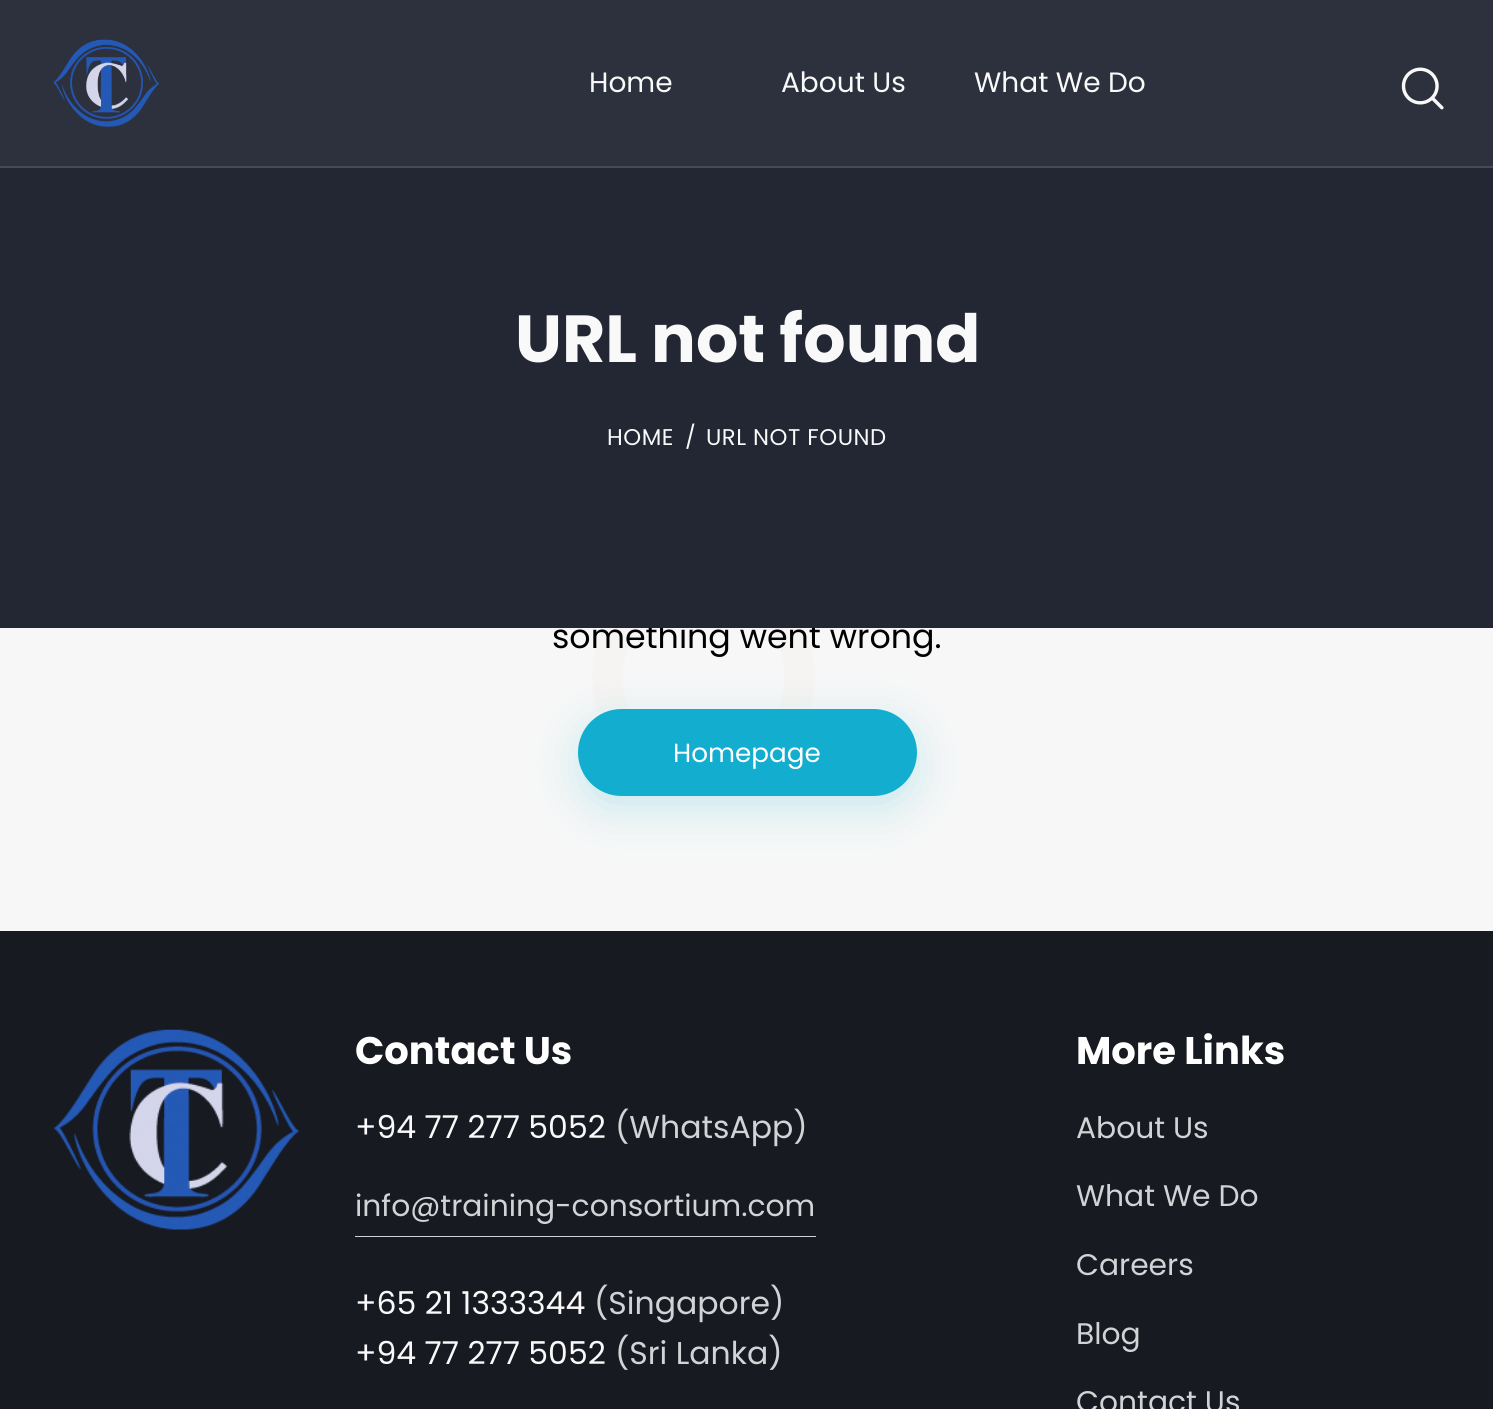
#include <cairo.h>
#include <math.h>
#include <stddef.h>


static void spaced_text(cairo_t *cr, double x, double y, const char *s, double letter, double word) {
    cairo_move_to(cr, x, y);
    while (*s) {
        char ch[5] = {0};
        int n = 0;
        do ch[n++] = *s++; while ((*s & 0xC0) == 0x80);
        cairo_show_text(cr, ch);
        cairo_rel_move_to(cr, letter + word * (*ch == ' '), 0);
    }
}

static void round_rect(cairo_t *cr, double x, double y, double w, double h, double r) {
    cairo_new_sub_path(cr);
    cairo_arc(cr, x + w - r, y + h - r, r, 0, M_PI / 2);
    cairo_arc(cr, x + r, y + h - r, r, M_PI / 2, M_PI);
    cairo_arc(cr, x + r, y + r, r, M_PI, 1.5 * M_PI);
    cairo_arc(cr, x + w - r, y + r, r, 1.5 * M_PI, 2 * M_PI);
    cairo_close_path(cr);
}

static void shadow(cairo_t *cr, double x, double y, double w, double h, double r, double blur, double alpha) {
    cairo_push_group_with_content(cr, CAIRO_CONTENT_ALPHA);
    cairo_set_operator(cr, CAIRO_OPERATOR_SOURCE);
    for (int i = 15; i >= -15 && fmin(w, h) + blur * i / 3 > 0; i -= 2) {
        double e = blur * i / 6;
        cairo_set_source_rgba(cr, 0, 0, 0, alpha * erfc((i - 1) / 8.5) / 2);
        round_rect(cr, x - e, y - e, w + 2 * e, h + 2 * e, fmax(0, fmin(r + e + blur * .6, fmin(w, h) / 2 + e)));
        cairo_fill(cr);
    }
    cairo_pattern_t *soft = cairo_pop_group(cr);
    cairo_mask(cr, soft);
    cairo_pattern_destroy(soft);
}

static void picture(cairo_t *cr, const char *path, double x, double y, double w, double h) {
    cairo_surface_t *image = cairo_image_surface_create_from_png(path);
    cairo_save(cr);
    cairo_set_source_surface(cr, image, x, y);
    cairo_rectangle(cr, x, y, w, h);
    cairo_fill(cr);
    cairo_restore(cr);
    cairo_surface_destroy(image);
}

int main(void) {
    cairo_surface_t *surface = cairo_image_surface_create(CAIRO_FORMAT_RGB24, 1493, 1409);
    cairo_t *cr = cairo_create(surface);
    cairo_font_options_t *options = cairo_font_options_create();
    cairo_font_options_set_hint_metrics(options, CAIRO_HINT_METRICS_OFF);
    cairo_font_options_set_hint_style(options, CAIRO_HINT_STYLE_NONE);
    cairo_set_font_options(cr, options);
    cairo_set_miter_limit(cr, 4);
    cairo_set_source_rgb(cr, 0.965, 0.965, 0.965);
    cairo_paint(cr);
    cairo_set_source_rgb(cr, 0.173, 0.192, 0.239);
    cairo_rectangle(cr, 0, 0, 1493, 166);
    cairo_fill(cr);
    cairo_set_source_rgb(cr, 0.278, 0.294, 0.333);
    cairo_rectangle(cr, 0, 166, 1493, 2);
    cairo_fill(cr);
    picture(cr, "img1.png", 53, 39, 107, 88);
    cairo_select_font_face(cr, "Poppins", CAIRO_FONT_SLANT_NORMAL, CAIRO_FONT_WEIGHT_NORMAL);
    cairo_set_font_size(cr, 28);
    cairo_set_source_rgb(cr, 0.976, 0.976, 0.976);
    cairo_move_to(cr, 589, 92);
    cairo_show_text(cr, "Home");
    cairo_move_to(cr, 781, 92);
    cairo_show_text(cr, "About Us");
    cairo_move_to(cr, 974, 92);
    cairo_show_text(cr, "What We Do");
    picture(cr, "img2.png", 1401, 67, 43, 43);
    cairo_arc(cr, 703.5, 677, 96, 0, 2 * M_PI);
    cairo_set_source_rgb(cr, 0.961, 0.957, 0.949);
    cairo_set_line_width(cr, 30.3);
    cairo_stroke(cr);
    cairo_set_font_size(cr, 33.25);
    cairo_set_source_rgb(cr, 0, 0, 0);
    cairo_move_to(cr, 552, 648);
    cairo_show_text(cr, "something went wrong.");
    cairo_set_source_rgb(cr, 0.133, 0.153, 0.2);
    cairo_rectangle(cr, 0, 168, 1493, 460);
    cairo_fill(cr);
    cairo_select_font_face(cr, "Poppins", CAIRO_FONT_SLANT_NORMAL, CAIRO_FONT_WEIGHT_BOLD);
    cairo_set_font_size(cr, 66.5);
    cairo_set_source_rgb(cr, 0.976, 0.976, 0.976);
    cairo_move_to(cr, 515, 362);
    cairo_show_text(cr, "URL not found");
    cairo_select_font_face(cr, "Poppins", CAIRO_FONT_SLANT_NORMAL, CAIRO_FONT_WEIGHT_NORMAL);
    cairo_set_font_size(cr, 22.75);
    spaced_text(cr, 607, 445, "HOME", 0.5, 0);
    spaced_text(cr, 685, 445, "/", 0.5, 0);
    spaced_text(cr, 706, 445, "URL NOT FOUND", 0.5, 0);
    cairo_set_source_rgb(cr, 0.078, 0.682, 0.812);
    shadow(cr, 578, 721, 339, 88, 44, 22, 0.2);
    cairo_set_source_rgb(cr, 0.078, 0.682, 0.812);
    round_rect(cr, 578, 709, 339, 87, 43.5);
    cairo_fill(cr);
    cairo_set_font_size(cr, 26.25);
    cairo_set_source_rgb(cr, 1, 1, 1);
    cairo_move_to(cr, 673, 762);
    cairo_show_text(cr, "Homepage");
    cairo_set_source_rgb(cr, 0.09, 0.102, 0.129);
    cairo_rectangle(cr, 0, 931, 1493, 478);
    cairo_fill(cr);
    picture(cr, "img3.png", 53, 1029, 246, 201);
    cairo_select_font_face(cr, "Poppins", CAIRO_FONT_SLANT_NORMAL, CAIRO_FONT_WEIGHT_BOLD);
    cairo_set_font_size(cr, 38.5);
    cairo_set_source_rgb(cr, 1, 1, 1);
    cairo_move_to(cr, 355, 1064);
    cairo_show_text(cr, "Contact Us");
    cairo_select_font_face(cr, "Poppins", CAIRO_FONT_SLANT_NORMAL, CAIRO_FONT_WEIGHT_NORMAL);
    cairo_set_font_size(cr, 31.5);
    cairo_set_source_rgb(cr, 0.976, 0.976, 0.976);
    cairo_move_to(cr, 355, 1138);
    cairo_show_text(cr, "+94 77 277 5052");
    cairo_set_source_rgb(cr, 0.824, 0.827, 0.835);
    cairo_move_to(cr, 615, 1138);
    cairo_show_text(cr, "(WhatsApp)");
    cairo_set_font_size(cr, 29.75);
    cairo_move_to(cr, 355, 1216);
    cairo_show_text(cr, "info@training-consortium.com");
    cairo_rectangle(cr, 355, 1236, 461, 1);
    cairo_fill(cr);
    cairo_set_font_size(cr, 31.5);
    cairo_set_source_rgb(cr, 0.976, 0.976, 0.976);
    cairo_move_to(cr, 355, 1314);
    cairo_show_text(cr, "+65 21 1333344");
    cairo_set_source_rgb(cr, 0.824, 0.827, 0.835);
    cairo_move_to(cr, 594, 1314);
    cairo_show_text(cr, "(Singapore)");
    cairo_set_source_rgb(cr, 0.976, 0.976, 0.976);
    cairo_move_to(cr, 355, 1364);
    cairo_show_text(cr, "+94 77 277 5052");
    cairo_set_source_rgb(cr, 0.824, 0.827, 0.835);
    cairo_move_to(cr, 615, 1364);
    cairo_show_text(cr, "(Sri Lanka)");
    cairo_select_font_face(cr, "Poppins", CAIRO_FONT_SLANT_NORMAL, CAIRO_FONT_WEIGHT_BOLD);
    cairo_set_font_size(cr, 38.5);
    cairo_set_source_rgb(cr, 1, 1, 1);
    cairo_move_to(cr, 1076, 1064);
    cairo_show_text(cr, "More Links");
    cairo_select_font_face(cr, "Poppins", CAIRO_FONT_SLANT_NORMAL, CAIRO_FONT_WEIGHT_NORMAL);
    cairo_set_font_size(cr, 29.75);
    cairo_set_source_rgb(cr, 0.824, 0.827, 0.835);
    cairo_move_to(cr, 1076, 1138);
    cairo_show_text(cr, "About Us");
    cairo_move_to(cr, 1076, 1206);
    cairo_show_text(cr, "What We Do");
    cairo_move_to(cr, 1076, 1275);
    cairo_show_text(cr, "Careers");
    cairo_move_to(cr, 1076, 1344);
    cairo_show_text(cr, "Blog");
    cairo_move_to(cr, 1076, 1412);
    cairo_show_text(cr, "Contact Us");
    cairo_surface_write_to_png(surface, "page.png");
    cairo_font_options_destroy(options);
    cairo_destroy(cr);
    cairo_surface_destroy(surface);
    return 0;
}
